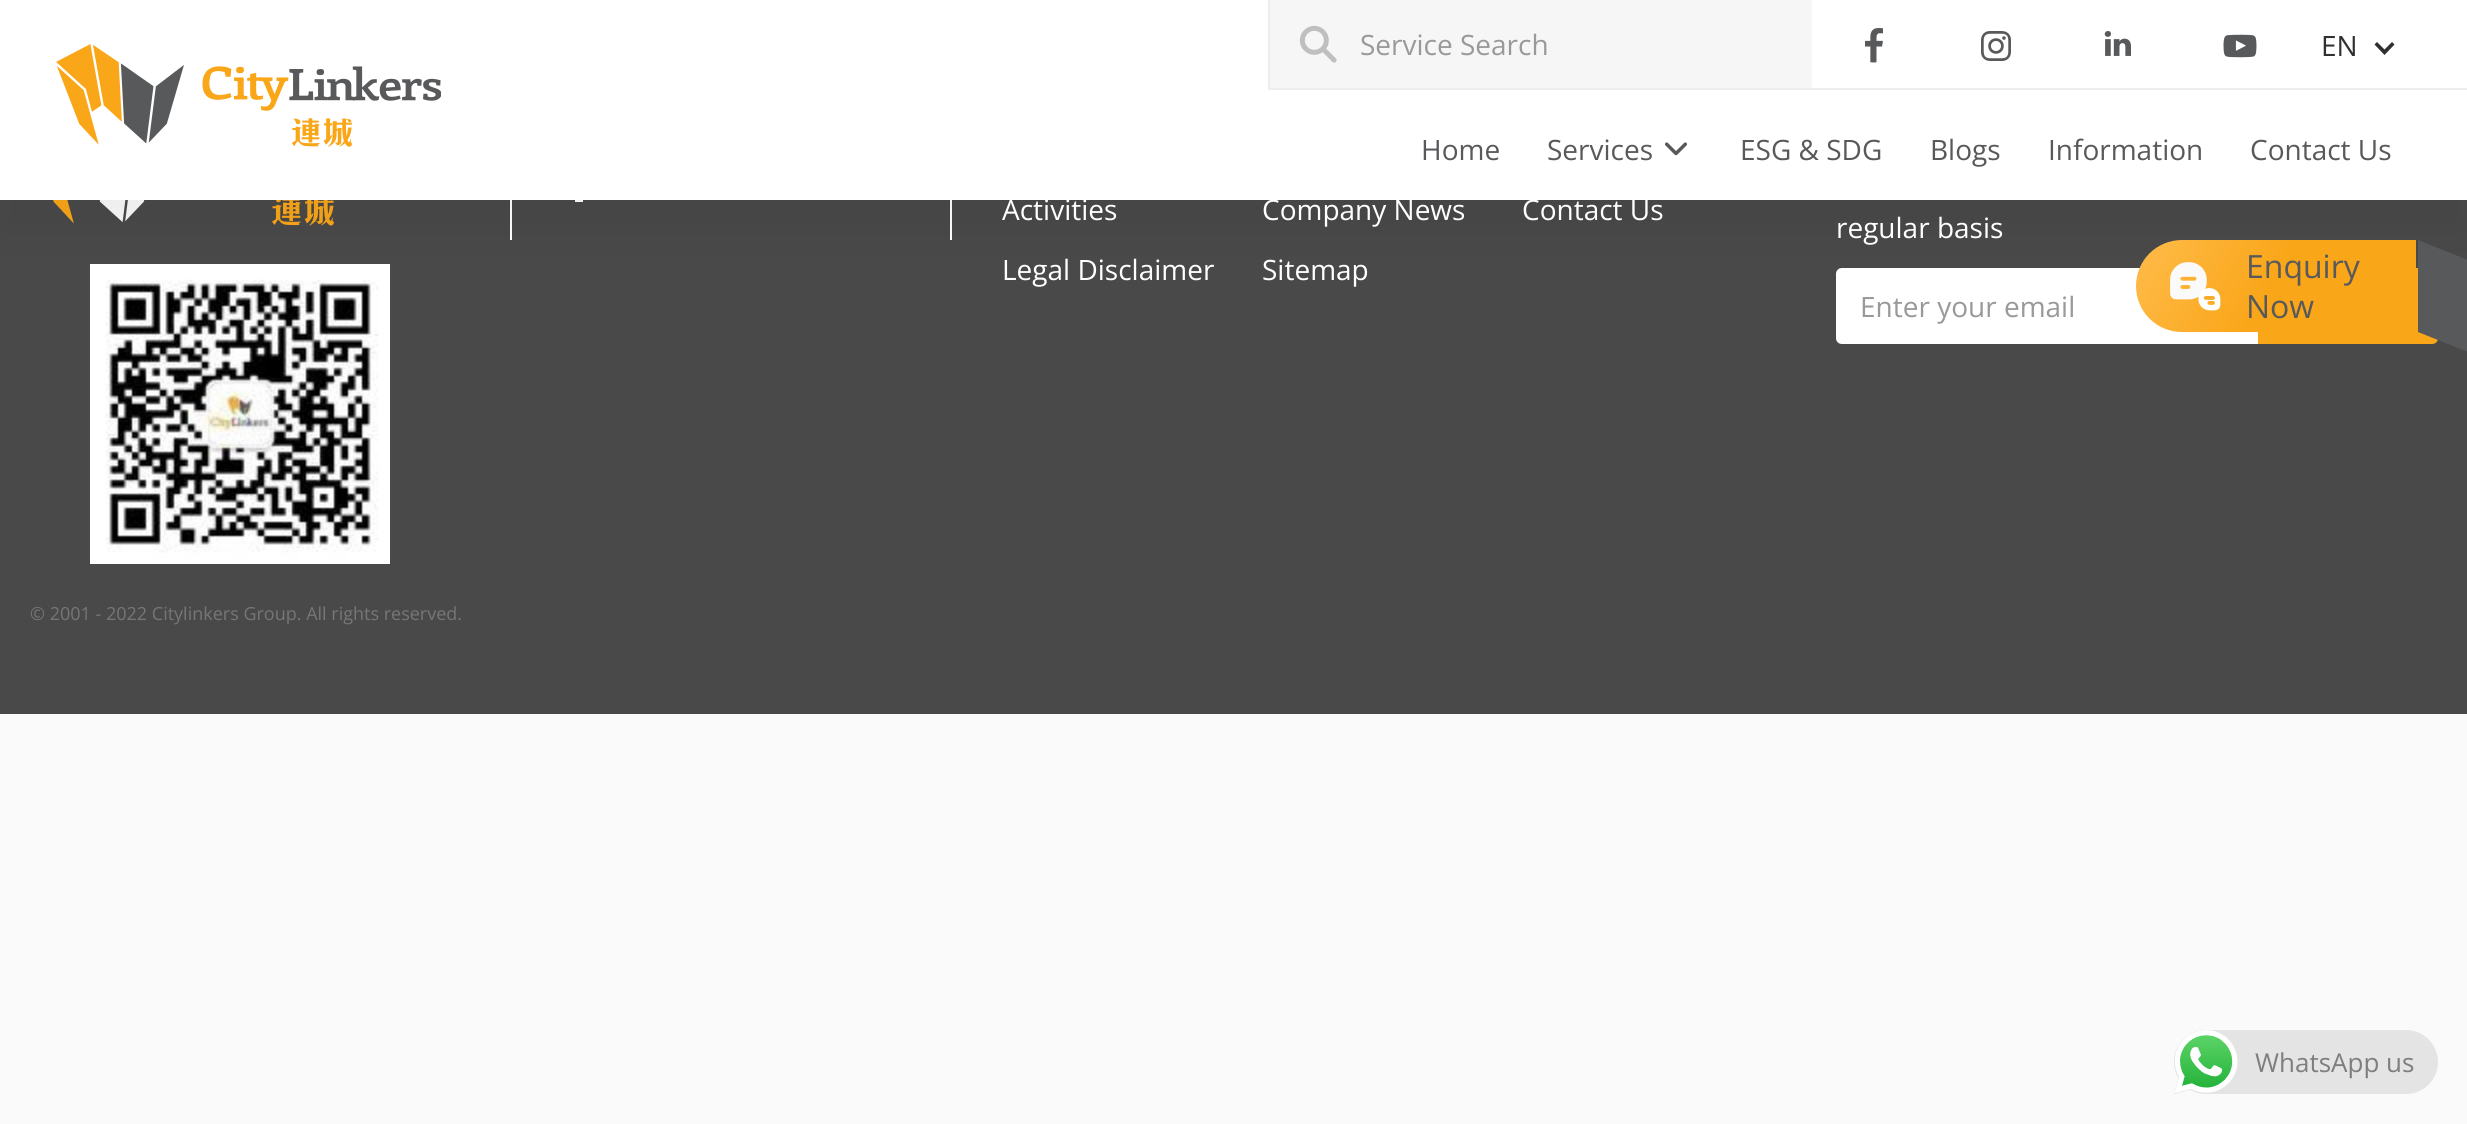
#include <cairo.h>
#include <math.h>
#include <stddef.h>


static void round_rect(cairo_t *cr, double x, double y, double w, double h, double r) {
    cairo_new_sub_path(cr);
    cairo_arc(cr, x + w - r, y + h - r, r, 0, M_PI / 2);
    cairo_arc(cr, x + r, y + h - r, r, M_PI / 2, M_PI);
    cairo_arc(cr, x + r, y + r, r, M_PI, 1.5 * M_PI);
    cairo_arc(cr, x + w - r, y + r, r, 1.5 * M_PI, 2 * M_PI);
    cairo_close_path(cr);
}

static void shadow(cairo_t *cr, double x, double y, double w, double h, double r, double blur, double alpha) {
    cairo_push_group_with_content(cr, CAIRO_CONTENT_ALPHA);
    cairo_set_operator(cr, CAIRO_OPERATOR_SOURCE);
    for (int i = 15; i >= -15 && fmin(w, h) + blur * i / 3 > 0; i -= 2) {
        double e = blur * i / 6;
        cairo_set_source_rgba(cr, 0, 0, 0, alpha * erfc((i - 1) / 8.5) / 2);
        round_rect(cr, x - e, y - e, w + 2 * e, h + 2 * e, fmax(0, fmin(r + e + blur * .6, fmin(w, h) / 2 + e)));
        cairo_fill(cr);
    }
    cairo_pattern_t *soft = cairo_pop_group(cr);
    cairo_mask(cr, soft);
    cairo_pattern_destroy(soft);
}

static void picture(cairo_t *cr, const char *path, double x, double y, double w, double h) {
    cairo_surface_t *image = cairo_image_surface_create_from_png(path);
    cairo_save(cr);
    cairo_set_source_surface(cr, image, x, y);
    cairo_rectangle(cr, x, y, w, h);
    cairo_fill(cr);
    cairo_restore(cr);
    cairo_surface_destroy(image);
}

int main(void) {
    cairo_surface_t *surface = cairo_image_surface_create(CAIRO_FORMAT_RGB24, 2467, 1124);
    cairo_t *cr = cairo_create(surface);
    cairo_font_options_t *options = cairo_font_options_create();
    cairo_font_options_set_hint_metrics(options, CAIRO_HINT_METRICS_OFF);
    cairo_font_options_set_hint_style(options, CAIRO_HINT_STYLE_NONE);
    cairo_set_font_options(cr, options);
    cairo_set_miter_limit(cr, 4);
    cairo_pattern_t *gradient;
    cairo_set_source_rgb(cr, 0.98, 0.98, 0.98);
    cairo_paint(cr);
    cairo_set_source_rgb(cr, 0.286, 0.286, 0.286);
    cairo_rectangle(cr, 0, 200, 2467, 514);
    cairo_fill(cr);
    picture(cr, "img9.png", 53, 200, 281, 26);
    picture(cr, "img10.png", 90, 264, 300, 300);
    cairo_set_source_rgb(cr, 1, 1, 1);
    cairo_rectangle(cr, 950, 200, 2, 40);
    cairo_fill(cr);
    cairo_rectangle(cr, 510, 200, 2, 40);
    cairo_fill(cr);
    cairo_new_path(cr);
    cairo_move_to(cr, 583, 181);
    cairo_line_to(cr, 591, 181);
    cairo_line_to(cr, 592, 173);
    cairo_line_to(cr, 583, 173);
    cairo_curve_to(cr, 583, 164, 583, 163, 592, 163);
    cairo_line_to(cr, 592, 156);
    cairo_curve_to(cr, 577, 154, 575, 159, 575, 173);
    cairo_line_to(cr, 568, 173);
    cairo_line_to(cr, 568, 181);
    cairo_line_to(cr, 575, 181);
    cairo_line_to(cr, 575, 202);
    cairo_line_to(cr, 583, 202);
    cairo_close_path(cr);
    cairo_fill(cr);
    cairo_new_path(cr);
    cairo_move_to(cr, 1842, 268);
    cairo_line_to(cr, 2258, 268);
    cairo_line_to(cr, 2258, 344);
    cairo_line_to(cr, 1842, 344);
    cairo_curve_to(cr, 1838.5, 344, 1836, 341.5, 1836, 338);
    cairo_line_to(cr, 1836, 274);
    cairo_curve_to(cr, 1836, 270.5, 1838.5, 268, 1842, 268);
    cairo_close_path(cr);
    cairo_fill(cr);
    cairo_set_source_rgb(cr, 0.98, 0.651, 0.098);
    cairo_new_path(cr);
    cairo_move_to(cr, 2258, 268);
    cairo_line_to(cr, 2432, 268);
    cairo_curve_to(cr, 2435.5, 268, 2438, 270.5, 2438, 274);
    cairo_line_to(cr, 2438, 338);
    cairo_curve_to(cr, 2438, 341.5, 2435.5, 344, 2432, 344);
    cairo_line_to(cr, 2258, 344);
    cairo_close_path(cr);
    cairo_fill(cr);
    cairo_set_source_rgb(cr, 0, 0, 0);
    shadow(cr, 0, 32, 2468, 200, 0, 20, 0.05);
    cairo_set_source_rgb(cr, 1, 1, 1);
    cairo_rectangle(cr, 0, 0, 2467, 200);
    cairo_fill(cr);
    cairo_set_source_rgb(cr, 0.929, 0.929, 0.929);
    cairo_rectangle(cr, 1268, 88, 1199, 2);
    cairo_fill(cr);
    cairo_rectangle(cr, 1268, 0, 2, 90);
    cairo_fill(cr);
    cairo_set_source_rgb(cr, 0.961, 0.961, 0.961);
    cairo_rectangle(cr, 1270, 0, 542, 88);
    cairo_fill(cr);
    picture(cr, "img1.png", 1299, 25, 38, 38);
    cairo_select_font_face(cr, "Open Sans", CAIRO_FONT_SLANT_NORMAL, CAIRO_FONT_WEIGHT_NORMAL);
    cairo_set_font_size(cr, 28);
    cairo_set_source_rgb(cr, 0.6, 0.6, 0.6);
    cairo_move_to(cr, 1360, 55);
    cairo_show_text(cr, "Service Search");
    picture(cr, "img2.png", 1865, 28, 18, 35);
    picture(cr, "img3.png", 1981, 31, 30, 30);
    picture(cr, "img4.png", 2104, 31, 27, 25);
    picture(cr, "img5.png", 2223, 34, 34, 24);
    cairo_set_source_rgb(cr, 0.188, 0.188, 0.188);
    cairo_move_to(cr, 2321, 56);
    cairo_show_text(cr, "EN");
    cairo_new_path(cr);
    cairo_move_to(cr, 2392, 42);
    cairo_line_to(cr, 2384.5, 49.5);
    cairo_line_to(cr, 2377, 42);
    cairo_line_to(cr, 2374.5, 44.5);
    cairo_line_to(cr, 2384.5, 55);
    cairo_line_to(cr, 2394.5, 44.5);
    cairo_close_path(cr);
    cairo_fill(cr);
    picture(cr, "img6.png", 56, 44, 385, 103);
    cairo_set_source_rgb(cr, 0.345, 0.349, 0.357);
    cairo_move_to(cr, 1421, 160);
    cairo_show_text(cr, "Home");
    picture(cr, "img7.png", 1664, 142, 24, 14);
    cairo_move_to(cr, 1547, 160);
    cairo_show_text(cr, "Services");
    cairo_move_to(cr, 1740, 160);
    cairo_show_text(cr, "ESG & SDG");
    cairo_move_to(cr, 1930, 160);
    cairo_show_text(cr, "Blogs");
    cairo_move_to(cr, 2048, 160);
    cairo_show_text(cr, "Information");
    cairo_move_to(cr, 2250, 160);
    cairo_show_text(cr, "Contact Us");
    cairo_new_path(cr);
    cairo_move_to(cr, 2418, 240);
    cairo_line_to(cr, 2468, 260);
    cairo_line_to(cr, 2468, 352);
    cairo_line_to(cr, 2418, 332);
    cairo_close_path(cr);
    cairo_fill(cr);
    gradient = cairo_pattern_create_linear(2149, 216, 2403, 356);
    cairo_pattern_add_color_stop_rgba(gradient, 0, 1, 0.737, 0.294, 1);
    cairo_pattern_add_color_stop_rgba(gradient, 0.48, 0.98, 0.651, 0.098, 1);
    cairo_pattern_add_color_stop_rgba(gradient, 1, 0.98, 0.651, 0.098, 1);
    cairo_set_source(cr, gradient);
    cairo_pattern_destroy(gradient);
    cairo_new_path(cr);
    cairo_move_to(cr, 2182, 240);
    cairo_line_to(cr, 2416, 240);
    cairo_line_to(cr, 2416, 332);
    cairo_line_to(cr, 2182, 332);
    cairo_curve_to(cr, 2156.5, 332, 2136, 311.5, 2136, 286);
    cairo_curve_to(cr, 2136, 260.5, 2156.5, 240, 2182, 240);
    cairo_close_path(cr);
    cairo_fill(cr);
    picture(cr, "img8.png", 2170, 262, 51, 49);
    cairo_set_font_size(cr, 32);
    cairo_set_source_rgb(cr, 0.345, 0.349, 0.357);
    cairo_move_to(cr, 2246, 278);
    cairo_show_text(cr, "Enquiry");
    cairo_move_to(cr, 2246, 318);
    cairo_show_text(cr, "Now");
    cairo_set_font_size(cr, 28);
    cairo_set_source_rgb(cr, 1, 1, 1);
    cairo_move_to(cr, 1002, 220);
    cairo_show_text(cr, "Activities");
    cairo_move_to(cr, 1262, 220);
    cairo_show_text(cr, "Company News");
    cairo_move_to(cr, 1522, 220);
    cairo_show_text(cr, "Contact Us");
    cairo_move_to(cr, 1002, 280);
    cairo_show_text(cr, "Legal Disclaimer");
    cairo_move_to(cr, 1262, 280);
    cairo_show_text(cr, "Sitemap");
    cairo_move_to(cr, 1836, 238);
    cairo_show_text(cr, "regular basis");
    cairo_set_source_rgb(cr, 0.6, 0.6, 0.6);
    cairo_move_to(cr, 1860, 317);
    cairo_show_text(cr, "Enter your email");
    cairo_set_font_size(cr, 18);
    cairo_set_source_rgb(cr, 0.463, 0.463, 0.463);
    cairo_move_to(cr, 30, 620);
    cairo_show_text(cr, "© 2001 - 2022 Citylinkers Group. All rights reserved.");
    cairo_set_source_rgb(cr, 0.894, 0.894, 0.894);
    round_rect(cr, 2174, 1030, 264, 64, 32);
    cairo_fill(cr);
    picture(cr, "img11.png", 2174, 1030, 64, 64);
    cairo_set_font_size(cr, 26);
    cairo_set_source_rgb(cr, 0.498, 0.49, 0.49);
    cairo_move_to(cr, 2255, 1072);
    cairo_show_text(cr, "WhatsApp us");
    cairo_surface_write_to_png(surface, "page.png");
    cairo_font_options_destroy(options);
    cairo_destroy(cr);
    cairo_surface_destroy(surface);
    return 0;
}
